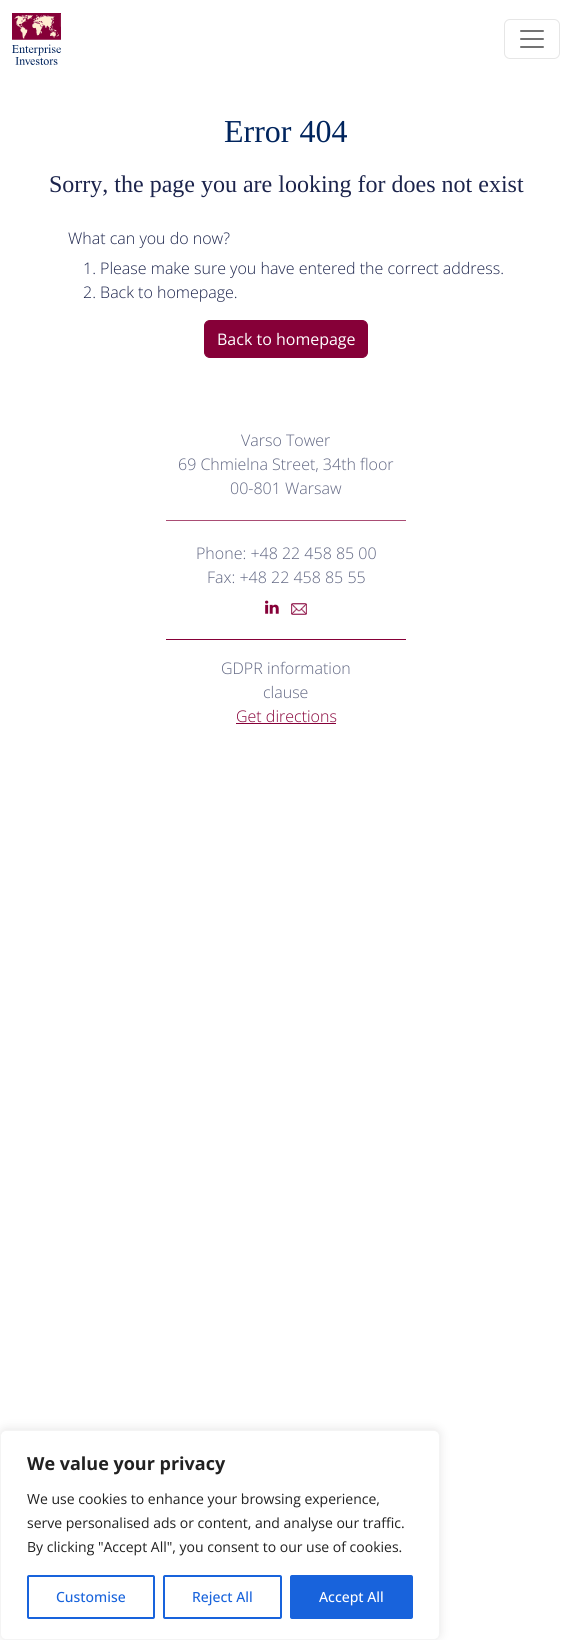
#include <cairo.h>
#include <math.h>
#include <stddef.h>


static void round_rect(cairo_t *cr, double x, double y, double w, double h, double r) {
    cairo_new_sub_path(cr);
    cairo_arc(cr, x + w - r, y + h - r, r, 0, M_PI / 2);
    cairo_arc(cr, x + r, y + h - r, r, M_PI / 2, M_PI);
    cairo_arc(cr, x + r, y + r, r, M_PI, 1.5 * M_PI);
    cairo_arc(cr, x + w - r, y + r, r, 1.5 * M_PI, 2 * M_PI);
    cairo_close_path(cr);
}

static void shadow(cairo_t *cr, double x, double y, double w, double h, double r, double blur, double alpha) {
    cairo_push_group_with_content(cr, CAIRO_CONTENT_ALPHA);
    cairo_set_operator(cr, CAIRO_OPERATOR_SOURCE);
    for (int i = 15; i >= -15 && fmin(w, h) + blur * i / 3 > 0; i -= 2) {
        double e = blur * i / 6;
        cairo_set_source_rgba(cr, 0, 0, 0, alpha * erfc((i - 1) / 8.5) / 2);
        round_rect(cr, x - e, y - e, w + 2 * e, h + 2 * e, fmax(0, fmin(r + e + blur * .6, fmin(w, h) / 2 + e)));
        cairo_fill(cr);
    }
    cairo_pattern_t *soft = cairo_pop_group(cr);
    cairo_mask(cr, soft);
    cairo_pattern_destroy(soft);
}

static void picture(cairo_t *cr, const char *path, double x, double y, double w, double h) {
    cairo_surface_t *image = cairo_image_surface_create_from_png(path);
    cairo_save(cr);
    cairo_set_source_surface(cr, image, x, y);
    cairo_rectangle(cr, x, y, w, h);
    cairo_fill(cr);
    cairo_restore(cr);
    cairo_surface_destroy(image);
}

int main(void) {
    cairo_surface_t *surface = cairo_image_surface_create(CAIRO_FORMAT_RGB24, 572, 1640);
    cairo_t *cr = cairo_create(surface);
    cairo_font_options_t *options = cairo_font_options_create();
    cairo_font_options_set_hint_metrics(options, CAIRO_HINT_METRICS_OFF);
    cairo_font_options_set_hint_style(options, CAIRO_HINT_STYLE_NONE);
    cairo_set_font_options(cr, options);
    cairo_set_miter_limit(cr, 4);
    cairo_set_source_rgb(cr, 1, 1, 1);
    cairo_paint(cr);
    picture(cr, "img1.png", 12, 13, 49, 52);
    round_rect(cr, 504.5, 19.5, 55, 39, 5.5);
    cairo_set_source_rgb(cr, 0.902, 0.902, 0.902);
    cairo_set_line_width(cr, 1);
    cairo_stroke(cr);
    picture(cr, "img2.png", 520, 30, 24, 18);
    cairo_select_font_face(cr, "Liberation Serif", CAIRO_FONT_SLANT_NORMAL, CAIRO_FONT_WEIGHT_NORMAL);
    cairo_set_font_size(cr, 32);
    cairo_set_source_rgb(cr, 0, 0.141, 0.365);
    cairo_move_to(cr, 224, 142);
    cairo_show_text(cr, "Error 404");
    cairo_set_font_size(cr, 24);
    cairo_set_source_rgb(cr, 0.11, 0.141, 0.298);
    cairo_move_to(cr, 49, 192);
    cairo_show_text(cr, "Sorry, the page you are looking for does not exist");
    cairo_select_font_face(cr, "Open Sans Light", CAIRO_FONT_SLANT_NORMAL, CAIRO_FONT_WEIGHT_NORMAL);
    cairo_set_font_size(cr, 16);
    cairo_move_to(cr, 68, 244);
    cairo_show_text(cr, "What can you do now?");
    cairo_move_to(cr, 83, 274);
    cairo_show_text(cr, "1. Please make sure you have entered the correct address.");
    cairo_move_to(cr, 83, 298);
    cairo_show_text(cr, "2. Back to homepage.");
    cairo_set_source_rgb(cr, 0.525, 0, 0.22);
    round_rect(cr, 204.5, 320.5, 163, 37, 5.5);
    cairo_fill_preserve(cr);
    cairo_stroke(cr);
    cairo_select_font_face(cr, "Open Sans", CAIRO_FONT_SLANT_NORMAL, CAIRO_FONT_WEIGHT_NORMAL);
    cairo_set_source_rgb(cr, 1, 1, 1);
    cairo_move_to(cr, 217, 345);
    cairo_show_text(cr, "Back to homepage");
    cairo_set_source_rgb(cr, 0.667, 0.302, 0.455);
    cairo_rectangle(cr, 166, 520, 240, 1);
    cairo_fill(cr);
    cairo_select_font_face(cr, "Open Sans Light", CAIRO_FONT_SLANT_NORMAL, CAIRO_FONT_WEIGHT_NORMAL);
    cairo_set_source_rgb(cr, 0.376, 0.4, 0.51);
    cairo_move_to(cr, 241, 446);
    cairo_show_text(cr, "Varso Tower");
    cairo_move_to(cr, 178, 470);
    cairo_show_text(cr, "69 Chmielna Street, 34th floor");
    cairo_move_to(cr, 230, 494);
    cairo_show_text(cr, "00-801 Warsaw");
    cairo_set_source_rgb(cr, 0.525, 0, 0.22);
    cairo_rectangle(cr, 166, 639, 240, 1);
    cairo_fill(cr);
    cairo_set_source_rgb(cr, 0.376, 0.4, 0.51);
    cairo_move_to(cr, 196, 559);
    cairo_show_text(cr, "Phone: +48 22 458 85 00");
    cairo_move_to(cr, 207, 583);
    cairo_show_text(cr, "Fax: +48 22 458 85 55");
    picture(cr, "img3.png", 265, 600, 14, 14);
    picture(cr, "img4.png", 291, 603, 16, 12);
    cairo_move_to(cr, 221, 674);
    cairo_show_text(cr, "GDPR information");
    cairo_move_to(cr, 263, 698);
    cairo_show_text(cr, "clause");
    cairo_set_source_rgb(cr, 0.525, 0, 0.22);
    cairo_move_to(cr, 236, 722);
    cairo_show_text(cr, "Get directions");
    cairo_rectangle(cr, 236, 723, 100, 1);
    cairo_fill(cr);
    cairo_set_source_rgb(cr, 0.675, 0.671, 0.671);
    shadow(cr, 0, 1429, 440, 210, 6, 5, 0.3);
    cairo_set_source_rgb(cr, 1, 1, 1);
    round_rect(cr, 0.5, 1430.5, 439, 209, 5.5);
    cairo_fill_preserve(cr);
    cairo_set_source_rgb(cr, 0.957, 0.957, 0.957);
    cairo_stroke(cr);
    cairo_select_font_face(cr, "Open Sans", CAIRO_FONT_SLANT_NORMAL, CAIRO_FONT_WEIGHT_BOLD);
    cairo_set_font_size(cr, 18);
    cairo_set_source_rgb(cr, 0.129, 0.129, 0.129);
    cairo_move_to(cr, 27, 1470);
    cairo_show_text(cr, "We value your privacy");
    cairo_select_font_face(cr, "Open Sans", CAIRO_FONT_SLANT_NORMAL, CAIRO_FONT_WEIGHT_NORMAL);
    cairo_set_font_size(cr, 14);
    cairo_move_to(cr, 27, 1504);
    cairo_show_text(cr, "We use cookies to enhance your browsing experience,");
    cairo_move_to(cr, 27, 1528);
    cairo_show_text(cr, "serve personalised ads or content, and analyse our traffic.");
    cairo_move_to(cr, 27, 1552);
    cairo_show_text(cr, "By clicking \"Accept All\", you consent to our use of cookies.");
    round_rect(cr, 28, 1576, 126, 42, 1);
    cairo_set_source_rgb(cr, 0.094, 0.388, 0.863);
    cairo_set_line_width(cr, 2);
    cairo_stroke(cr);
    cairo_select_font_face(cr, "Open Sans Medium", CAIRO_FONT_SLANT_NORMAL, CAIRO_FONT_WEIGHT_NORMAL);
    cairo_move_to(cr, 56, 1602);
    cairo_show_text(cr, "Customise");
    round_rect(cr, 164, 1576, 117, 42, 1);
    cairo_stroke(cr);
    cairo_move_to(cr, 192, 1602);
    cairo_show_text(cr, "Reject All");
    round_rect(cr, 291, 1576, 121, 42, 1);
    cairo_fill_preserve(cr);
    cairo_stroke(cr);
    cairo_set_source_rgb(cr, 1, 1, 1);
    cairo_move_to(cr, 319, 1602);
    cairo_show_text(cr, "Accept All");
    cairo_surface_write_to_png(surface, "page.png");
    cairo_font_options_destroy(options);
    cairo_destroy(cr);
    cairo_surface_destroy(surface);
    return 0;
}
